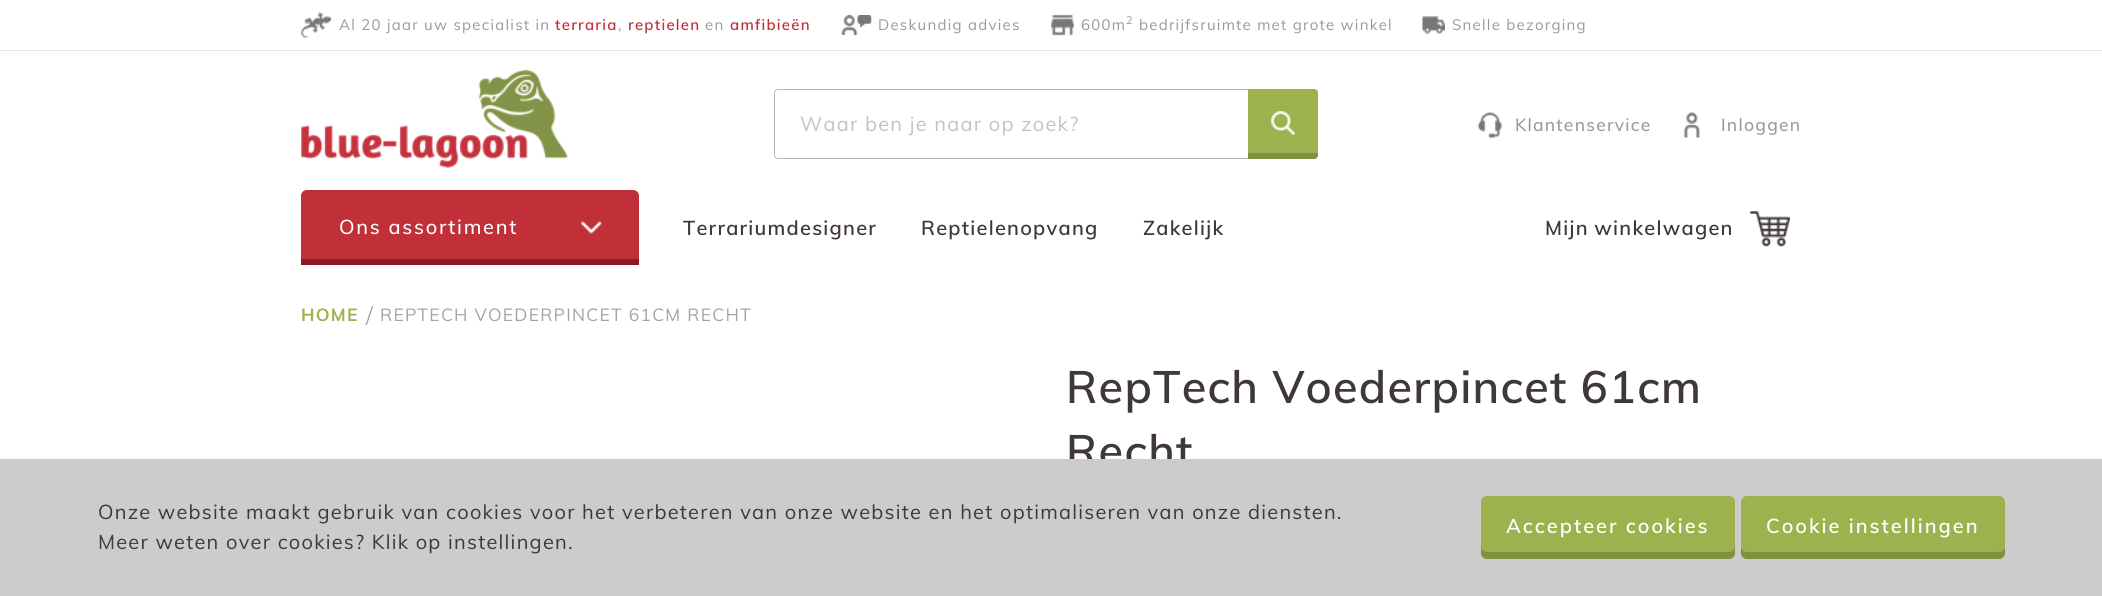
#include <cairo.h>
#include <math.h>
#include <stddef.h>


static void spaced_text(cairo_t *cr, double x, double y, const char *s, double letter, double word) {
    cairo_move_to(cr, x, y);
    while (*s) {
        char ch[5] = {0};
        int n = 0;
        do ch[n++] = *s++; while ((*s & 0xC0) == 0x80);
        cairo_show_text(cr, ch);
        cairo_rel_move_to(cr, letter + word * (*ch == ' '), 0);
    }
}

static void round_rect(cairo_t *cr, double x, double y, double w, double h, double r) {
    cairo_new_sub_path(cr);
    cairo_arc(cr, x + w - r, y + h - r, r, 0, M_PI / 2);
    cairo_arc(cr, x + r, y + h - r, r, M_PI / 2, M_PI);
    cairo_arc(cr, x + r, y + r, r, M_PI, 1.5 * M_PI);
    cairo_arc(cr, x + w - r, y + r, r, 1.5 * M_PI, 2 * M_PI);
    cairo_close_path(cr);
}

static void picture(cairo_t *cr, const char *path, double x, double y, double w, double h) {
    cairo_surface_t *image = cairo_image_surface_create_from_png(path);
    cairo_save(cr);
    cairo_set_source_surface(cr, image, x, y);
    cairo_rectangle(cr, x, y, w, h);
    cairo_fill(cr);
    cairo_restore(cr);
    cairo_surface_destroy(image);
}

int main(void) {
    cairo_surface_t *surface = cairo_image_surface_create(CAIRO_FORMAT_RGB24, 2102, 596);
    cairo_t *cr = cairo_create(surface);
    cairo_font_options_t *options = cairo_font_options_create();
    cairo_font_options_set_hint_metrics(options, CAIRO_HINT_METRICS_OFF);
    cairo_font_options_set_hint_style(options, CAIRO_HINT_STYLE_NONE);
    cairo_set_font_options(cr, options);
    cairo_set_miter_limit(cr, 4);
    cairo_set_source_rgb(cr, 1, 1, 1);
    cairo_paint(cr);
    cairo_set_source_rgb(cr, 0.91, 0.91, 0.91);
    cairo_rectangle(cr, 0, 50, 2102, 1);
    cairo_fill(cr);
    picture(cr, "img1.png", 301, 12, 31, 26);
    cairo_select_font_face(cr, "Muli", CAIRO_FONT_SLANT_NORMAL, CAIRO_FONT_WEIGHT_NORMAL);
    cairo_set_font_size(cr, 15);
    cairo_set_source_rgb(cr, 0.6, 0.6, 0.6);
    spaced_text(cr, 339, 30, "Al 20 jaar uw specialist in", 1.25, 0);
    cairo_select_font_face(cr, "Muli SemiBold", CAIRO_FONT_SLANT_NORMAL, CAIRO_FONT_WEIGHT_NORMAL);
    cairo_set_source_rgb(cr, 0.757, 0.188, 0.22);
    spaced_text(cr, 555, 30, "terraria", 1.25, 0);
    cairo_select_font_face(cr, "Muli", CAIRO_FONT_SLANT_NORMAL, CAIRO_FONT_WEIGHT_NORMAL);
    cairo_set_source_rgb(cr, 0.6, 0.6, 0.6);
    spaced_text(cr, 618, 30, ",", 1.25, 0);
    cairo_select_font_face(cr, "Muli SemiBold", CAIRO_FONT_SLANT_NORMAL, CAIRO_FONT_WEIGHT_NORMAL);
    cairo_set_source_rgb(cr, 0.757, 0.188, 0.22);
    spaced_text(cr, 628, 30, "reptielen", 1.25, 0);
    cairo_select_font_face(cr, "Muli", CAIRO_FONT_SLANT_NORMAL, CAIRO_FONT_WEIGHT_NORMAL);
    cairo_set_source_rgb(cr, 0.6, 0.6, 0.6);
    spaced_text(cr, 705, 30, "en", 1.25, 0);
    cairo_select_font_face(cr, "Muli SemiBold", CAIRO_FONT_SLANT_NORMAL, CAIRO_FONT_WEIGHT_NORMAL);
    cairo_set_source_rgb(cr, 0.757, 0.188, 0.22);
    spaced_text(cr, 730, 30, "amfibieën", 1.25, 0);
    picture(cr, "img2.png", 841, 15, 31, 20);
    cairo_select_font_face(cr, "Muli", CAIRO_FONT_SLANT_NORMAL, CAIRO_FONT_WEIGHT_NORMAL);
    cairo_set_source_rgb(cr, 0.6, 0.6, 0.6);
    spaced_text(cr, 878, 30, "Deskundig advies", 1.25, 0);
    picture(cr, "img3.png", 1051, 14, 23, 22);
    spaced_text(cr, 1081, 30, "600m", 1.25, 0);
    cairo_set_font_size(cr, 11);
    spaced_text(cr, 1126, 24, "2", 1.25, 0);
    cairo_set_font_size(cr, 15);
    spaced_text(cr, 1139, 30, "bedrijfsruimte met grote winkel", 1.25, 0);
    picture(cr, "img4.png", 1422, 16, 23, 18);
    spaced_text(cr, 1452, 30, "Snelle bezorging", 1.25, 0);
    picture(cr, "img5.png", 301, 70, 267, 98);
    round_rect(cr, 774.5, 89.5, 543, 69, 3.5);
    cairo_set_source_rgb(cr, 0.71, 0.71, 0.71);
    cairo_set_line_width(cr, 1);
    cairo_stroke(cr);
    cairo_set_font_size(cr, 20);
    cairo_set_source_rgb(cr, 0.761, 0.761, 0.761);
    spaced_text(cr, 800, 131, "Waar ben je naar op zoek?", 1.25, 0);
    cairo_set_source_rgb(cr, 0.616, 0.698, 0.306);
    cairo_new_path(cr);
    cairo_move_to(cr, 1248, 89);
    cairo_line_to(cr, 1314, 89);
    cairo_curve_to(cr, 1316, 89, 1318, 91, 1318, 93);
    cairo_line_to(cr, 1318, 155);
    cairo_curve_to(cr, 1318, 157, 1316, 159, 1314, 159);
    cairo_line_to(cr, 1248, 159);
    cairo_close_path(cr);
    cairo_fill(cr);
    picture(cr, "img6.png", 1271, 111, 24, 24);
    cairo_set_source_rgb(cr, 0.502, 0.569, 0.251);
    cairo_new_path(cr);
    cairo_move_to(cr, 1248, 153);
    cairo_line_to(cr, 1318, 153);
    cairo_line_to(cr, 1318, 155);
    cairo_curve_to(cr, 1318, 157, 1316, 159, 1314, 159);
    cairo_line_to(cr, 1248, 159);
    cairo_close_path(cr);
    cairo_fill(cr);
    picture(cr, "img7.png", 1477, 112, 26, 26);
    cairo_select_font_face(cr, "Muli Medium", CAIRO_FONT_SLANT_NORMAL, CAIRO_FONT_WEIGHT_NORMAL);
    cairo_set_font_size(cr, 17.5);
    cairo_set_source_rgb(cr, 0.6, 0.6, 0.6);
    spaced_text(cr, 1515, 131, "Klantenservice", 1.25, 0);
    picture(cr, "img8.png", 1683, 112, 17, 26);
    spaced_text(cr, 1721, 131, "Inloggen", 1.25, 0);
    cairo_set_source_rgb(cr, 0.757, 0.188, 0.22);
    cairo_new_path(cr);
    cairo_move_to(cr, 307, 190);
    cairo_line_to(cr, 633, 190);
    cairo_curve_to(cr, 636.5, 190, 639, 192.5, 639, 196);
    cairo_line_to(cr, 639, 265);
    cairo_line_to(cr, 301, 265);
    cairo_line_to(cr, 301, 196);
    cairo_curve_to(cr, 301, 192.5, 303.5, 190, 307, 190);
    cairo_close_path(cr);
    cairo_fill(cr);
    picture(cr, "img9.png", 581, 221, 21, 13);
    cairo_set_source_rgb(cr, 0.561, 0.106, 0.133);
    cairo_rectangle(cr, 301, 259, 338, 6);
    cairo_fill(cr);
    cairo_set_font_size(cr, 20);
    cairo_set_source_rgb(cr, 1, 1, 1);
    spaced_text(cr, 339, 234, "Ons assortiment", 1.75, 0);
    cairo_select_font_face(cr, "Muli SemiBold", CAIRO_FONT_SLANT_NORMAL, CAIRO_FONT_WEIGHT_NORMAL);
    cairo_set_source_rgb(cr, 0.251, 0.22, 0.212);
    spaced_text(cr, 683, 235, "Terrariumdesigner", 1.25, 0);
    spaced_text(cr, 921, 235, "Reptielenopvang", 1.25, 0);
    spaced_text(cr, 1143, 235, "Zakelijk", 1.25, 0);
    spaced_text(cr, 1545, 235, "Mijn winkelwagen", 1.25, -1);
    picture(cr, "img10.png", 1750, 211, 40, 36);
    cairo_select_font_face(cr, "Muli", CAIRO_FONT_SLANT_NORMAL, CAIRO_FONT_WEIGHT_BOLD);
    cairo_set_font_size(cr, 17.5);
    cairo_set_source_rgb(cr, 0.616, 0.698, 0.306);
    spaced_text(cr, 301, 321, "HOME", 1.25, 0);
    cairo_save(cr);
    cairo_rectangle(cr, 365, 303, 10, 22);
    cairo_clip(cr);
    cairo_select_font_face(cr, "Liberation Serif", CAIRO_FONT_SLANT_NORMAL, CAIRO_FONT_WEIGHT_NORMAL);
    cairo_set_font_size(cr, 30);
    cairo_set_source_rgb(cr, 0.639, 0.639, 0.639);
    spaced_text(cr, 365, 326, "/", 1.25, 0);
    cairo_restore(cr);
    cairo_select_font_face(cr, "Muli", CAIRO_FONT_SLANT_NORMAL, CAIRO_FONT_WEIGHT_NORMAL);
    cairo_set_source_rgb(cr, 0.639, 0.639, 0.639);
    spaced_text(cr, 380, 321, "REPTECH VOEDERPINCET 61CM RECHT", 1.25, 0);
    cairo_select_font_face(cr, "Muli SemiBold", CAIRO_FONT_SLANT_NORMAL, CAIRO_FONT_WEIGHT_NORMAL);
    cairo_set_font_size(cr, 45);
    cairo_set_source_rgb(cr, 0.251, 0.22, 0.212);
    spaced_text(cr, 1066, 403, "RepTech Voederpincet 61cm", 1.25, 0);
    spaced_text(cr, 1066, 467, "Recht", 1.25, 0);
    cairo_set_source_rgb(cr, 0.8, 0.8, 0.8);
    cairo_rectangle(cr, 0, 459, 2102, 137);
    cairo_fill(cr);
    cairo_select_font_face(cr, "Muli", CAIRO_FONT_SLANT_NORMAL, CAIRO_FONT_WEIGHT_NORMAL);
    cairo_set_font_size(cr, 20);
    cairo_set_source_rgb(cr, 0.251, 0.22, 0.212);
    spaced_text(cr, 98, 519, "Onze website maakt gebruik van cookies voor het verbeteren van onze website en het optimaliseren van onze diensten.", 1.25, 0);
    spaced_text(cr, 98, 549, "Meer weten over cookies? Klik op instellingen.", 1.25, 0);
    cairo_set_source_rgb(cr, 0.616, 0.698, 0.306);
    round_rect(cr, 1481, 496, 254, 63, 6);
    cairo_fill(cr);
    cairo_set_source_rgb(cr, 0.502, 0.569, 0.251);
    cairo_new_path(cr);
    cairo_move_to(cr, 1481, 546);
    cairo_line_to(cr, 1481, 553);
    cairo_curve_to(cr, 1481, 556, 1484, 559, 1487, 559);
    cairo_line_to(cr, 1729, 559);
    cairo_curve_to(cr, 1732, 559, 1735, 556, 1735, 553);
    cairo_line_to(cr, 1735, 546);
    cairo_curve_to(cr, 1735, 550, 1732, 552, 1729, 552);
    cairo_line_to(cr, 1488, 552);
    cairo_curve_to(cr, 1484, 552, 1481, 550, 1481, 546);
    cairo_close_path(cr);
    cairo_fill(cr);
    cairo_select_font_face(cr, "Muli SemiBold", CAIRO_FONT_SLANT_NORMAL, CAIRO_FONT_WEIGHT_NORMAL);
    cairo_set_source_rgb(cr, 1, 1, 1);
    spaced_text(cr, 1506, 533, "Accepteer cookies", 2, 0);
    cairo_set_source_rgb(cr, 0.616, 0.698, 0.306);
    round_rect(cr, 1741, 496, 264, 63, 6);
    cairo_fill(cr);
    cairo_set_source_rgb(cr, 0.502, 0.569, 0.251);
    cairo_new_path(cr);
    cairo_move_to(cr, 1741, 546);
    cairo_line_to(cr, 1741, 553);
    cairo_curve_to(cr, 1741, 556, 1744, 559, 1747, 559);
    cairo_line_to(cr, 1999, 559);
    cairo_curve_to(cr, 2002, 559, 2005, 556, 2005, 553);
    cairo_line_to(cr, 2005, 546);
    cairo_curve_to(cr, 2005, 550, 2002, 552, 1999, 552);
    cairo_line_to(cr, 1748, 552);
    cairo_curve_to(cr, 1744, 552, 1741, 550, 1741, 546);
    cairo_close_path(cr);
    cairo_fill(cr);
    cairo_set_source_rgb(cr, 1, 1, 1);
    spaced_text(cr, 1766, 533, "Cookie instellingen", 2, 0);
    cairo_surface_write_to_png(surface, "page.png");
    cairo_font_options_destroy(options);
    cairo_destroy(cr);
    cairo_surface_destroy(surface);
    return 0;
}
